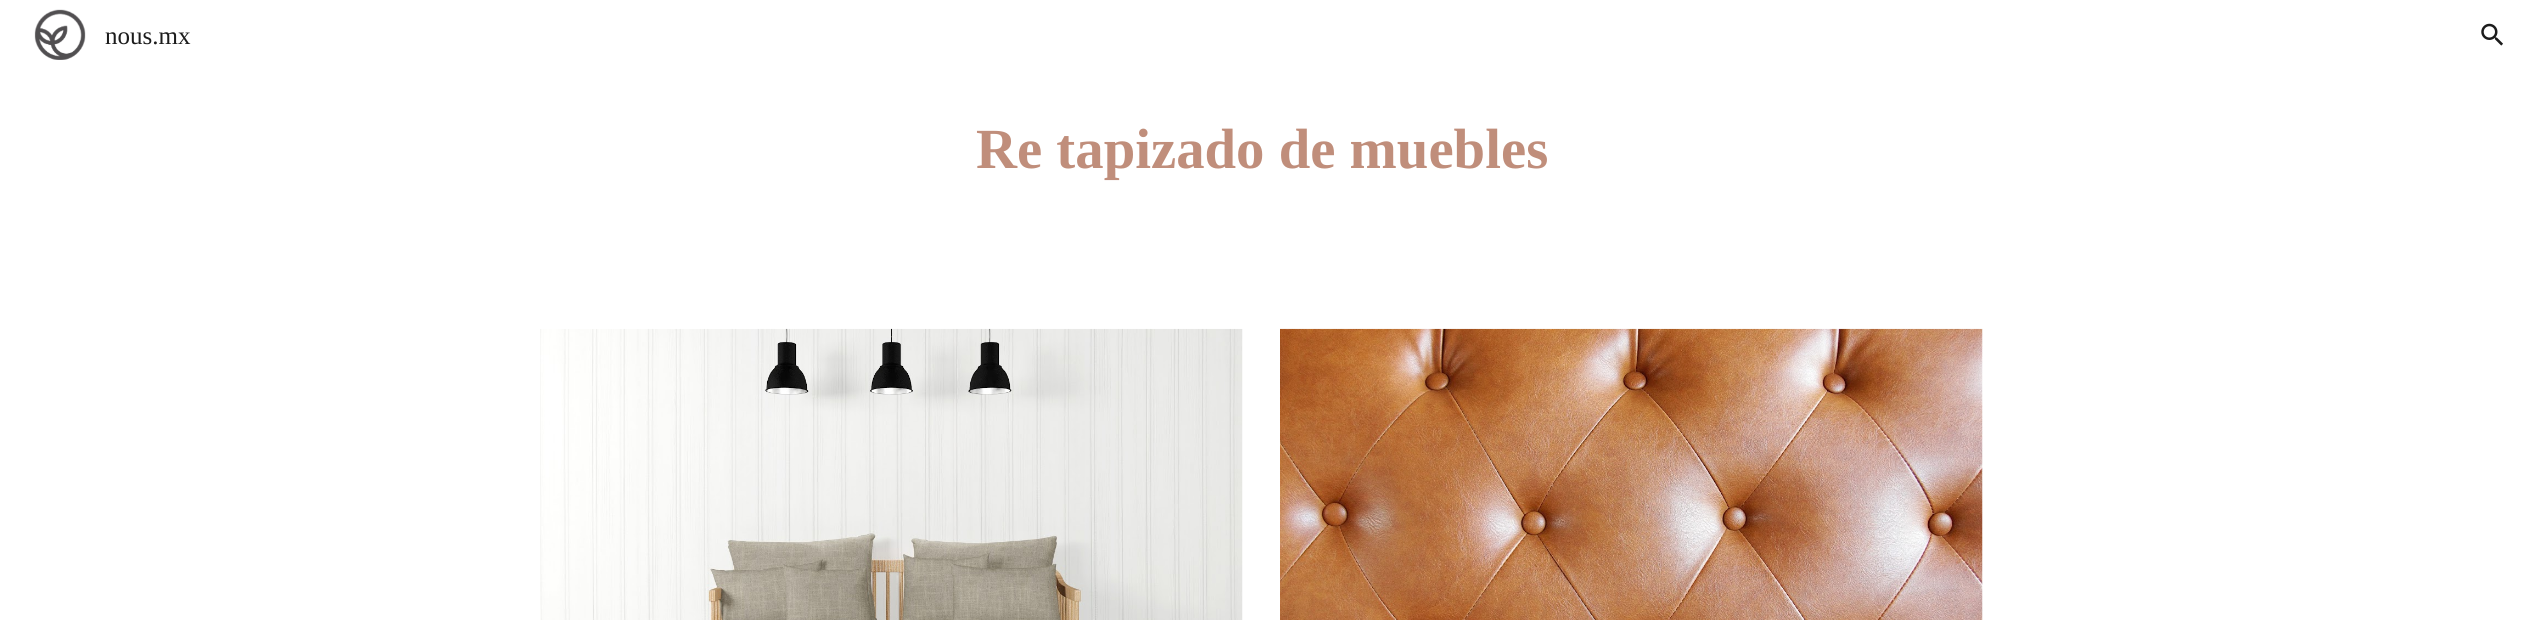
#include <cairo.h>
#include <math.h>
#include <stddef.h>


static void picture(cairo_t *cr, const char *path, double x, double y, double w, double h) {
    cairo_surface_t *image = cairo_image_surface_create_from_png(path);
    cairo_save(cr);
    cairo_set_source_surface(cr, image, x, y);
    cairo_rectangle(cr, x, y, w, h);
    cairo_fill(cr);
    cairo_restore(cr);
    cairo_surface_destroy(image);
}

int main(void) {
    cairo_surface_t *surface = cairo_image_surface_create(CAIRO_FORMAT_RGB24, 2522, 620);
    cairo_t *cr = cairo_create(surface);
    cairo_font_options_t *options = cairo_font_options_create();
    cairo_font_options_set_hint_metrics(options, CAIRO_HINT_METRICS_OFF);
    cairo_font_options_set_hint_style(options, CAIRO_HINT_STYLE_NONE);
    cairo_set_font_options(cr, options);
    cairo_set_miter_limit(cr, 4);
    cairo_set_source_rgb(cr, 1, 1, 1);
    cairo_paint(cr);
    picture(cr, "img1.png", 34, 9, 52, 51);
    cairo_select_font_face(cr, "Liberation Serif", CAIRO_FONT_SLANT_NORMAL, CAIRO_FONT_WEIGHT_NORMAL);
    cairo_set_font_size(cr, 25);
    cairo_set_source_rgb(cr, 0.11, 0.11, 0.11);
    cairo_move_to(cr, 105, 44);
    cairo_show_text(cr, "nous.mx");
    picture(cr, "img2.png", 2481, 23, 22, 23);
    cairo_select_font_face(cr, "Liberation Serif", CAIRO_FONT_SLANT_NORMAL, CAIRO_FONT_WEIGHT_BOLD);
    cairo_set_font_size(cr, 56.75);
    cairo_set_source_rgb(cr, 0.753, 0.557, 0.482);
    cairo_move_to(cr, 976, 168);
    cairo_show_text(cr, "Re tapizado de muebles");
    picture(cr, "img3.png", 540, 328, 703, 292);
    picture(cr, "img4.png", 1280, 328, 703, 292);
    cairo_surface_write_to_png(surface, "page.png");
    cairo_font_options_destroy(options);
    cairo_destroy(cr);
    cairo_surface_destroy(surface);
    return 0;
}
